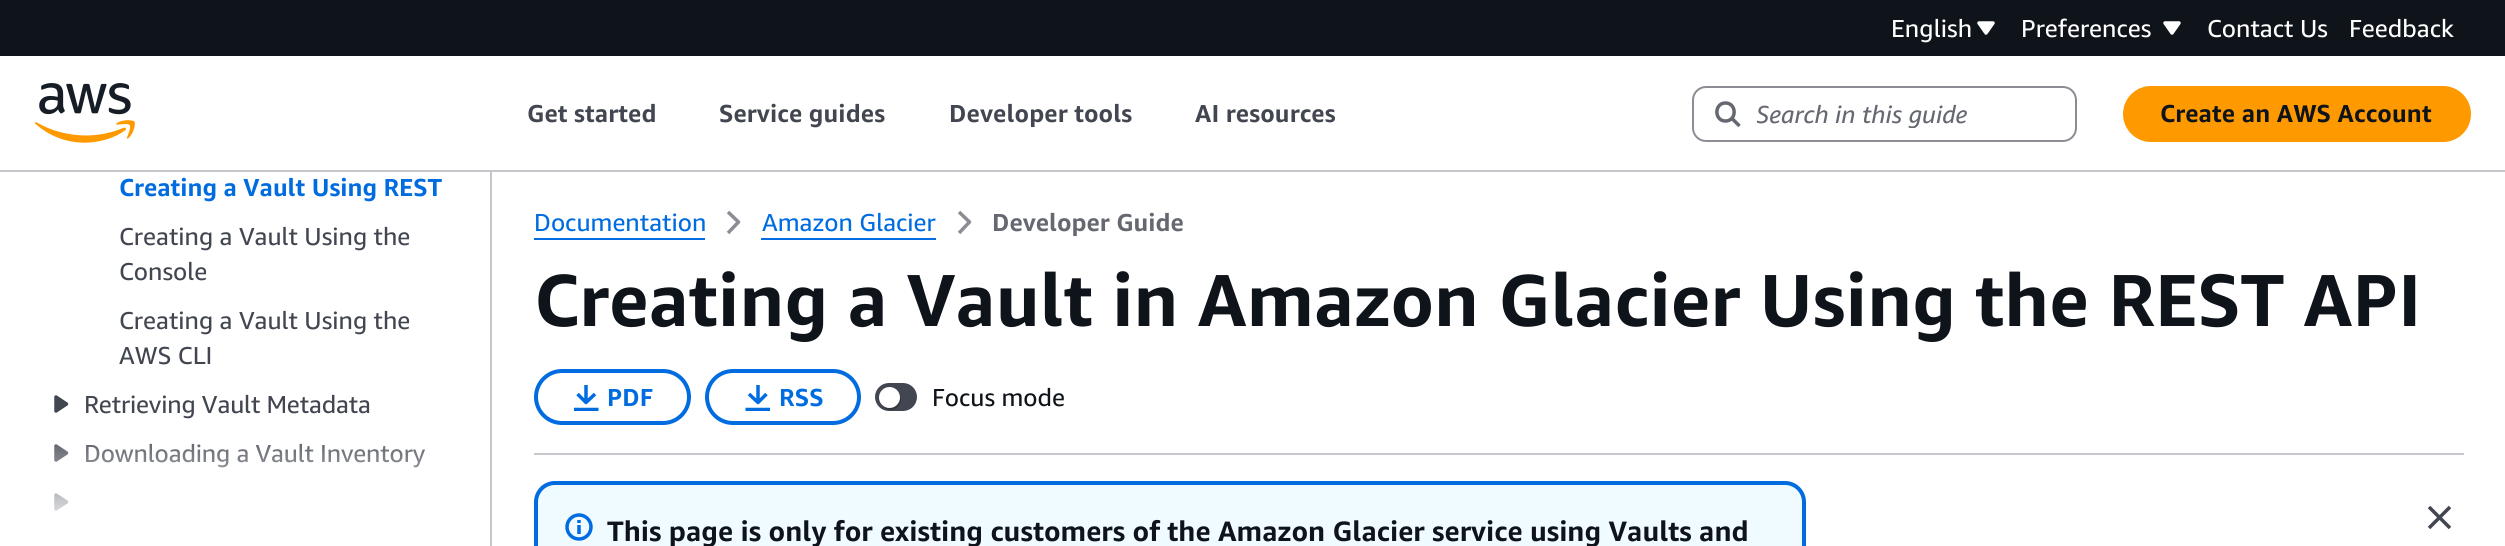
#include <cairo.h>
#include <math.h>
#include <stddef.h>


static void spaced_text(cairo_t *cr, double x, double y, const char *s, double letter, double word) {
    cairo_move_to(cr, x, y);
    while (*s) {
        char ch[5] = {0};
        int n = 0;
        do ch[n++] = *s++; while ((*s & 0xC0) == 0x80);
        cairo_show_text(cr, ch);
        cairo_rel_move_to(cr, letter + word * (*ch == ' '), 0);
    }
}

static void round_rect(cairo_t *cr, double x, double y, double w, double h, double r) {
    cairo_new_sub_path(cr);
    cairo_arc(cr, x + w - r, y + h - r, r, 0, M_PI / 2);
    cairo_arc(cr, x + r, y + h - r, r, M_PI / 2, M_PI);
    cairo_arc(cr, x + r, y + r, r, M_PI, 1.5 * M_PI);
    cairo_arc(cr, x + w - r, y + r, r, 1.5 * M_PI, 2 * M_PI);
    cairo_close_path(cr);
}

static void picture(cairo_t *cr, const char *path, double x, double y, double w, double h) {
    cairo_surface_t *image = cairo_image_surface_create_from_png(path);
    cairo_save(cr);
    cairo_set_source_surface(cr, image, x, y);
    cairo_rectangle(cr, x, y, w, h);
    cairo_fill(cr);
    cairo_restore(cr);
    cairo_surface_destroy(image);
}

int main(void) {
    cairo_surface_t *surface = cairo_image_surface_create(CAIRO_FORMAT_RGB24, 2505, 546);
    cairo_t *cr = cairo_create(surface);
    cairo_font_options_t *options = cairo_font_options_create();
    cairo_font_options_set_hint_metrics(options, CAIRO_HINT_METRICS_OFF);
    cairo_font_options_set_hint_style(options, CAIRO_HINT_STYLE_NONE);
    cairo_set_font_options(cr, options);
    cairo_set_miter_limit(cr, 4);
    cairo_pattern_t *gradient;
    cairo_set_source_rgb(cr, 1, 1, 1);
    cairo_paint(cr);
    cairo_set_source_rgb(cr, 0.776, 0.776, 0.804);
    cairo_rectangle(cr, 0, 170, 2505, 2);
    cairo_fill(cr);
    cairo_set_source_rgb(cr, 0.059, 0.078, 0.102);
    cairo_rectangle(cr, 0, 0, 2505, 56);
    cairo_fill(cr);
    cairo_select_font_face(cr, "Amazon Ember", CAIRO_FONT_SLANT_NORMAL, CAIRO_FONT_WEIGHT_NORMAL);
    cairo_set_font_size(cr, 24.5);
    cairo_set_source_rgb(cr, 1, 1, 1);
    spaced_text(cr, 1891, 37, "English", 0.1, 0);
    cairo_new_path(cr);
    cairo_move_to(cr, 1986, 33);
    cairo_line_to(cr, 1993, 23);
    cairo_line_to(cr, 1979, 23);
    cairo_close_path(cr);
    cairo_fill_preserve(cr);
    cairo_set_line_width(cr, 3.5);
    cairo_set_line_join(cr, CAIRO_LINE_JOIN_ROUND);
    cairo_stroke(cr);
    cairo_move_to(cr, 2021, 37);
    cairo_show_text(cr, "Preferences");
    cairo_new_path(cr);
    cairo_move_to(cr, 2172, 33);
    cairo_line_to(cr, 2179, 23);
    cairo_line_to(cr, 2165, 23);
    cairo_close_path(cr);
    cairo_fill_preserve(cr);
    cairo_stroke(cr);
    cairo_move_to(cr, 2207, 37);
    cairo_show_text(cr, "Contact Us");
    cairo_move_to(cr, 2349, 37);
    cairo_show_text(cr, "Feedback");
    picture(cr, "img1.png", 35, 83, 100, 60);
    cairo_select_font_face(cr, "Amazon Ember", CAIRO_FONT_SLANT_NORMAL, CAIRO_FONT_WEIGHT_BOLD);
    cairo_set_source_rgb(cr, 0.259, 0.275, 0.314);
    spaced_text(cr, 527, 122, "Get started", 0.1, 0);
    spaced_text(cr, 719, 122, "Service guides", 0.1, 0);
    spaced_text(cr, 949, 122, "Developer tools", 0.1, 0);
    spaced_text(cr, 1195, 122, "AI resources", 0.1, 0);
    round_rect(cr, 1693, 87, 383, 54, 13);
    cairo_set_source_rgb(cr, 0.549, 0.549, 0.58);
    cairo_set_line_width(cr, 2);
    cairo_set_line_join(cr, CAIRO_LINE_JOIN_MITER);
    cairo_stroke(cr);
    cairo_new_path(cr);
    cairo_move_to(cr, 1732.5, 119);
    cairo_line_to(cr, 1739.5, 126);
    cairo_move_to(cr, 1725.5, 121);
    cairo_curve_to(cr, 1737, 121, 1737, 103, 1725.5, 103);
    cairo_curve_to(cr, 1714, 103, 1714, 121, 1725.5, 121);
    cairo_close_path(cr);
    cairo_set_source_rgb(cr, 0.396, 0.408, 0.443);
    cairo_set_line_width(cr, 3.5);
    cairo_set_line_join(cr, CAIRO_LINE_JOIN_ROUND);
    cairo_stroke(cr);
    cairo_save(cr);
    cairo_rectangle(cr, 1757, 98, 298, 30);
    cairo_clip(cr);
    cairo_select_font_face(cr, "Amazon Ember", CAIRO_FONT_SLANT_ITALIC, CAIRO_FONT_WEIGHT_NORMAL);
    cairo_move_to(cr, 1756, 123);
    cairo_show_text(cr, "Search in this guide");
    cairo_restore(cr);
    cairo_set_source_rgb(cr, 1, 0.6, 0);
    round_rect(cr, 2125, 88, 344, 52, 26);
    cairo_fill_preserve(cr);
    cairo_set_line_width(cr, 4);
    cairo_set_line_join(cr, CAIRO_LINE_JOIN_MITER);
    cairo_stroke(cr);
    cairo_set_source_rgb(cr, 0.059, 0.078, 0.102);
    spaced_text(cr, 2160, 122, "Create an AWS Account", 0.1, 0);
    cairo_set_source_rgb(cr, 0.776, 0.776, 0.804);
    cairo_rectangle(cr, 490, 172, 2, 374);
    cairo_fill(cr);
    cairo_set_source_rgb(cr, 0, 0.424, 0.878);
    cairo_move_to(cr, 119, 196);
    cairo_show_text(cr, "Creating a Vault Using REST");
    cairo_select_font_face(cr, "Amazon Ember", CAIRO_FONT_SLANT_NORMAL, CAIRO_FONT_WEIGHT_NORMAL);
    cairo_set_source_rgb(cr, 0.259, 0.275, 0.314);
    cairo_move_to(cr, 119, 245);
    cairo_show_text(cr, "Creating a Vault Using the");
    cairo_move_to(cr, 119, 280);
    cairo_show_text(cr, "Console");
    cairo_move_to(cr, 119, 329);
    cairo_show_text(cr, "Creating a Vault Using the");
    cairo_move_to(cr, 119, 364);
    cairo_show_text(cr, "AWS CLI");
    cairo_new_path(cr);
    cairo_move_to(cr, 66.5, 404);
    cairo_line_to(cr, 56, 397);
    cairo_line_to(cr, 56, 411);
    cairo_close_path(cr);
    cairo_fill_preserve(cr);
    cairo_set_line_width(cr, 3.5);
    cairo_set_line_join(cr, CAIRO_LINE_JOIN_ROUND);
    cairo_stroke(cr);
    spaced_text(cr, 84, 413, "Retrieving Vault Metadata", -0.15, 0);
    cairo_new_path(cr);
    cairo_move_to(cr, 66.5, 453);
    cairo_line_to(cr, 56, 446);
    cairo_line_to(cr, 56, 460);
    cairo_close_path(cr);
    cairo_fill_preserve(cr);
    cairo_stroke(cr);
    spaced_text(cr, 84, 462, "Downloading a Vault Inventory", -0.15, 0);
    cairo_new_path(cr);
    cairo_move_to(cr, 66.5, 502);
    cairo_line_to(cr, 56, 495);
    cairo_line_to(cr, 56, 509);
    cairo_close_path(cr);
    cairo_fill_preserve(cr);
    cairo_stroke(cr);
    gradient = cairo_pattern_create_linear(245, 546, 245, 424);
    cairo_pattern_add_color_stop_rgba(gradient, 0, 1, 1, 1, 1);
    cairo_pattern_add_color_stop_rgba(gradient, 0.1, 1, 1, 1, 1);
    cairo_pattern_add_color_stop_rgba(gradient, 1, 1, 1, 1, 0);
    cairo_set_source(cr, gradient);
    cairo_pattern_destroy(gradient);
    cairo_rectangle(cr, 54, 443, 371, 68);
    cairo_fill(cr);
    cairo_set_source_rgb(cr, 0, 0.424, 0.878);
    cairo_move_to(cr, 534, 231);
    cairo_show_text(cr, "Documentation");
    cairo_rectangle(cr, 534, 238, 171, 2);
    cairo_fill(cr);
    cairo_new_path(cr);
    cairo_move_to(cr, 728, 212);
    cairo_line_to(cr, 738.5, 222);
    cairo_line_to(cr, 728, 233);
    cairo_set_source_rgb(cr, 0.549, 0.549, 0.58);
    cairo_stroke(cr);
    cairo_set_source_rgb(cr, 0, 0.424, 0.878);
    cairo_move_to(cr, 762, 231);
    cairo_show_text(cr, "Amazon Glacier");
    cairo_rectangle(cr, 761, 238, 175, 2);
    cairo_fill(cr);
    cairo_new_path(cr);
    cairo_move_to(cr, 959, 212);
    cairo_line_to(cr, 969.5, 222);
    cairo_line_to(cr, 959, 233);
    cairo_set_source_rgb(cr, 0.549, 0.549, 0.58);
    cairo_stroke(cr);
    cairo_select_font_face(cr, "Amazon Ember", CAIRO_FONT_SLANT_NORMAL, CAIRO_FONT_WEIGHT_BOLD);
    cairo_set_source_rgb(cr, 0.396, 0.408, 0.443);
    cairo_move_to(cr, 992, 231);
    cairo_show_text(cr, "Developer Guide");
    cairo_set_source_rgb(cr, 0.776, 0.776, 0.804);
    cairo_rectangle(cr, 534, 453, 1930, 2);
    cairo_fill(cr);
    cairo_set_font_size(cr, 73.5);
    cairo_set_source_rgb(cr, 0.059, 0.078, 0.102);
    cairo_move_to(cr, 534, 326);
    cairo_show_text(cr, "Creating a Vault in Amazon Glacier Using the REST API");
    round_rect(cr, 536, 371, 153, 52, 26);
    cairo_set_source_rgb(cr, 0, 0.424, 0.878);
    cairo_set_line_width(cr, 4);
    cairo_set_line_join(cr, CAIRO_LINE_JOIN_MITER);
    cairo_stroke(cr);
    cairo_save(cr);
    cairo_rectangle(cr, 572, 383, 28, 28);
    cairo_clip(cr);
    cairo_new_path(cr);
    cairo_move_to(cr, 574, 409.5);
    cairo_line_to(cr, 598.5, 409.5);
    cairo_move_to(cr, 595, 394);
    cairo_line_to(cr, 586, 402.5);
    cairo_line_to(cr, 577.5, 394);
    cairo_move_to(cr, 586, 401);
    cairo_line_to(cr, 586, 385);
    cairo_set_line_width(cr, 3.5);
    cairo_set_line_join(cr, CAIRO_LINE_JOIN_ROUND);
    cairo_stroke(cr);
    cairo_restore(cr);
    cairo_set_font_size(cr, 24.5);
    spaced_text(cr, 607, 406, "PDF", 0.1, 0);
    round_rect(cr, 707, 371, 152, 52, 26);
    cairo_stroke(cr);
    cairo_save(cr);
    cairo_rectangle(cr, 744, 383, 28, 28);
    cairo_clip(cr);
    cairo_new_path(cr);
    cairo_move_to(cr, 745.5, 409.5);
    cairo_line_to(cr, 770, 409.5);
    cairo_move_to(cr, 766.5, 394);
    cairo_line_to(cr, 758, 402.5);
    cairo_line_to(cr, 749, 394);
    cairo_move_to(cr, 758, 401);
    cairo_line_to(cr, 758, 385);
    cairo_set_line_width(cr, 3.5);
    cairo_set_line_join(cr, CAIRO_LINE_JOIN_ROUND);
    cairo_stroke(cr);
    cairo_restore(cr);
    spaced_text(cr, 779, 406, "RSS", 0.1, 0);
    cairo_set_source_rgb(cr, 0.259, 0.275, 0.314);
    round_rect(cr, 875, 383, 42, 28, 14);
    cairo_fill(cr);
    cairo_set_source_rgb(cr, 0.196, 0.208, 0.235);
    cairo_new_path(cr);
    cairo_move_to(cr, 881, 404);
    cairo_curve_to(cr, 882, 406.5, 884, 408, 886, 409);
    cairo_curve_to(cr, 896.5, 413.5, 905.5, 401, 898.5, 392.5);
    cairo_curve_to(cr, 903.5, 403.5, 889, 413.5, 881, 404);
    cairo_close_path(cr);
    cairo_fill(cr);
    cairo_set_source_rgb(cr, 1, 1, 1);
    cairo_arc(cr, 889.5, 397.5, 10.5, 0, 2 * M_PI);
    cairo_fill(cr);
    cairo_select_font_face(cr, "Amazon Ember", CAIRO_FONT_SLANT_NORMAL, CAIRO_FONT_WEIGHT_NORMAL);
    cairo_set_source_rgb(cr, 0.059, 0.078, 0.102);
    cairo_move_to(cr, 932, 406);
    cairo_show_text(cr, "Focus mode");
    cairo_set_source_rgb(cr, 0.941, 0.984, 1);
    round_rect(cr, 536, 483, 1268, 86, 19);
    cairo_fill_preserve(cr);
    cairo_set_source_rgb(cr, 0, 0.424, 0.878);
    cairo_stroke(cr);
    cairo_arc(cr, 579, 527, 12, 0, 2 * M_PI);
    cairo_set_line_width(cr, 3.5);
    cairo_stroke(cr);
    cairo_new_path(cr);
    cairo_move_to(cr, 579, 534);
    cairo_line_to(cr, 579, 525);
    cairo_move_to(cr, 579, 523);
    cairo_line_to(cr, 579, 520);
    cairo_stroke(cr);
    cairo_select_font_face(cr, "Amazon Ember", CAIRO_FONT_SLANT_NORMAL, CAIRO_FONT_WEIGHT_BOLD);
    cairo_set_font_size(cr, 28);
    cairo_set_source_rgb(cr, 0.059, 0.078, 0.102);
    cairo_move_to(cr, 607, 541);
    cairo_show_text(cr, "This page is only for existing customers of the Amazon Glacier service using Vaults and");
    cairo_new_path(cr);
    cairo_move_to(cr, 2429, 507);
    cairo_line_to(cr, 2450, 528);
    cairo_move_to(cr, 2429, 528);
    cairo_line_to(cr, 2450, 507);
    cairo_set_source_rgb(cr, 0.259, 0.275, 0.314);
    cairo_set_line_join(cr, CAIRO_LINE_JOIN_ROUND);
    cairo_stroke(cr);
    cairo_surface_write_to_png(surface, "page.png");
    cairo_font_options_destroy(options);
    cairo_destroy(cr);
    cairo_surface_destroy(surface);
    return 0;
}
